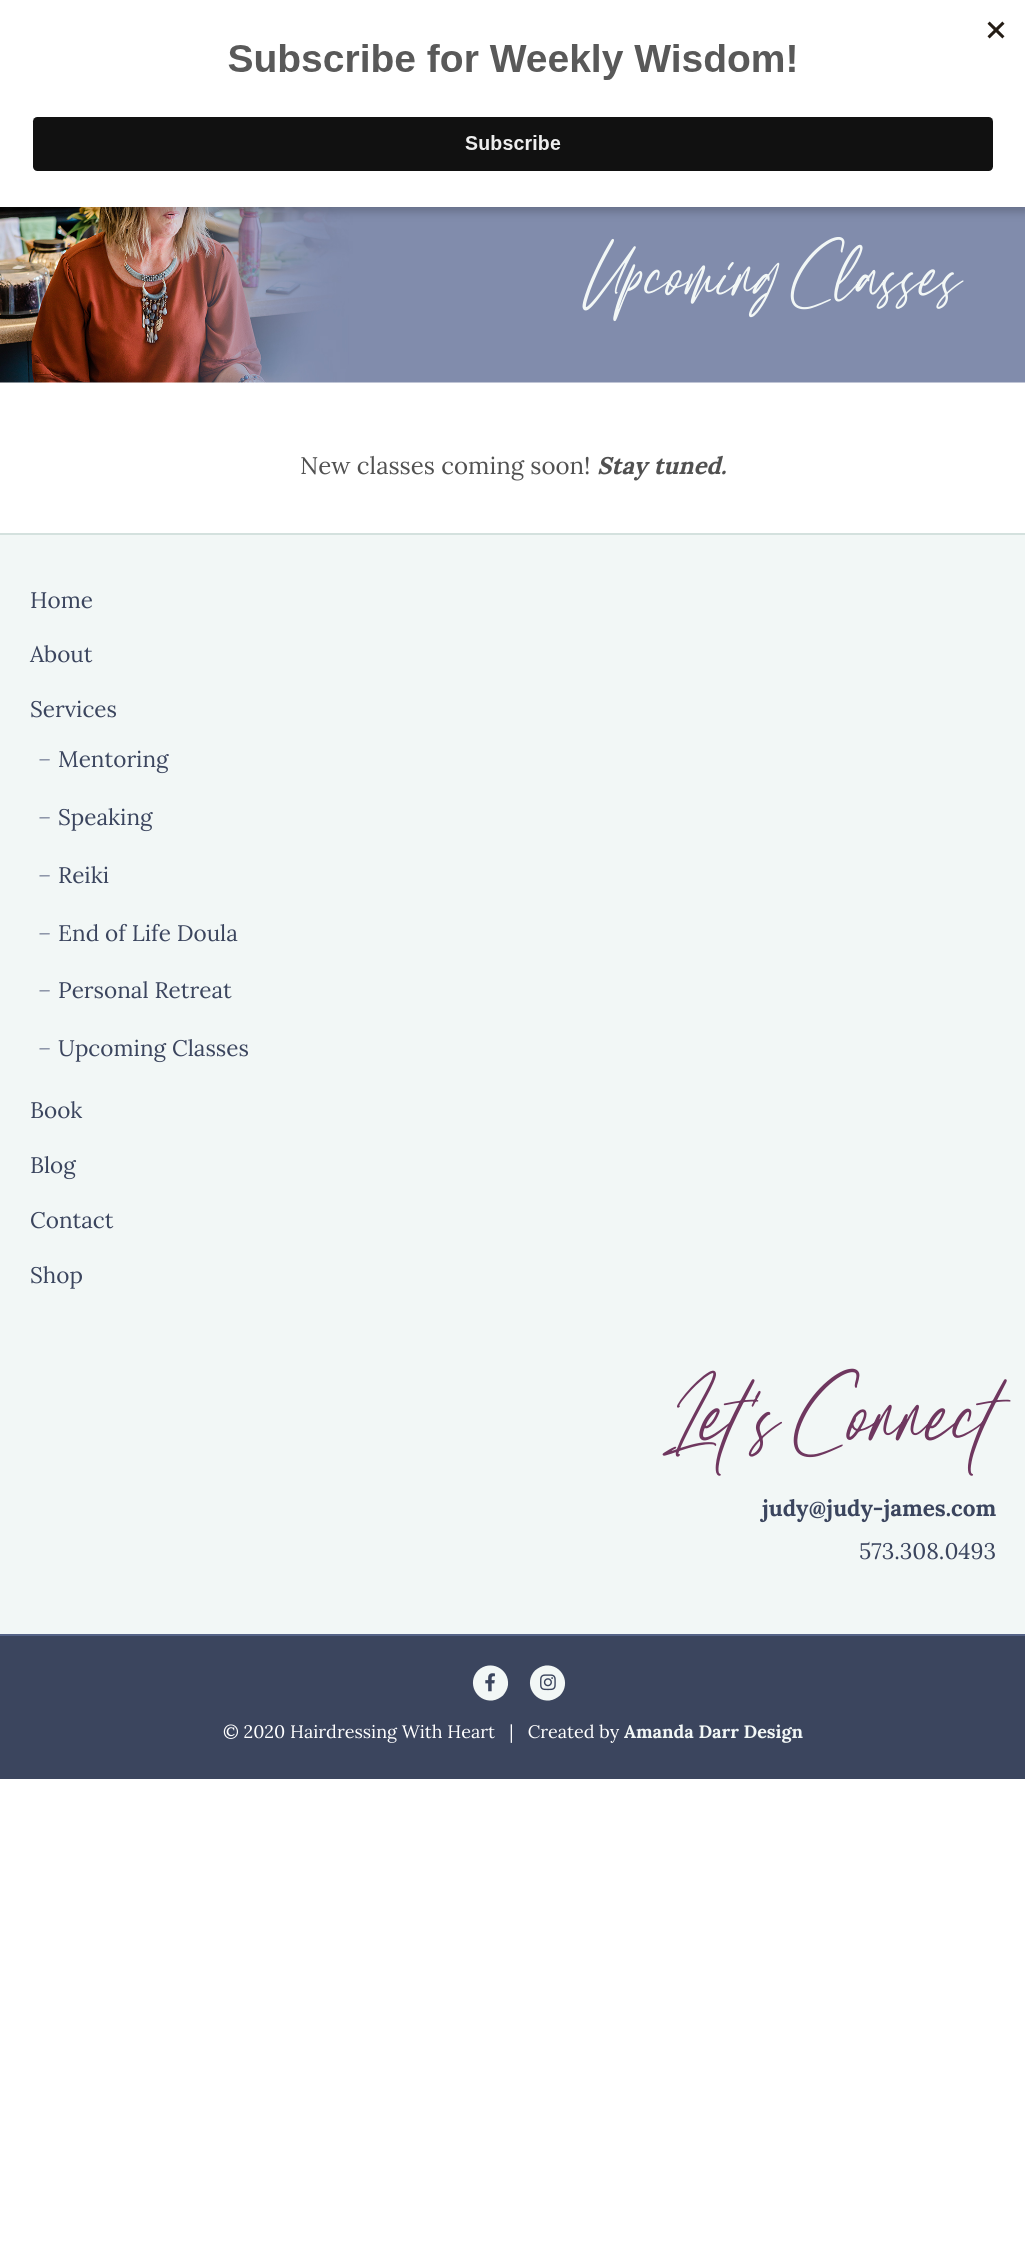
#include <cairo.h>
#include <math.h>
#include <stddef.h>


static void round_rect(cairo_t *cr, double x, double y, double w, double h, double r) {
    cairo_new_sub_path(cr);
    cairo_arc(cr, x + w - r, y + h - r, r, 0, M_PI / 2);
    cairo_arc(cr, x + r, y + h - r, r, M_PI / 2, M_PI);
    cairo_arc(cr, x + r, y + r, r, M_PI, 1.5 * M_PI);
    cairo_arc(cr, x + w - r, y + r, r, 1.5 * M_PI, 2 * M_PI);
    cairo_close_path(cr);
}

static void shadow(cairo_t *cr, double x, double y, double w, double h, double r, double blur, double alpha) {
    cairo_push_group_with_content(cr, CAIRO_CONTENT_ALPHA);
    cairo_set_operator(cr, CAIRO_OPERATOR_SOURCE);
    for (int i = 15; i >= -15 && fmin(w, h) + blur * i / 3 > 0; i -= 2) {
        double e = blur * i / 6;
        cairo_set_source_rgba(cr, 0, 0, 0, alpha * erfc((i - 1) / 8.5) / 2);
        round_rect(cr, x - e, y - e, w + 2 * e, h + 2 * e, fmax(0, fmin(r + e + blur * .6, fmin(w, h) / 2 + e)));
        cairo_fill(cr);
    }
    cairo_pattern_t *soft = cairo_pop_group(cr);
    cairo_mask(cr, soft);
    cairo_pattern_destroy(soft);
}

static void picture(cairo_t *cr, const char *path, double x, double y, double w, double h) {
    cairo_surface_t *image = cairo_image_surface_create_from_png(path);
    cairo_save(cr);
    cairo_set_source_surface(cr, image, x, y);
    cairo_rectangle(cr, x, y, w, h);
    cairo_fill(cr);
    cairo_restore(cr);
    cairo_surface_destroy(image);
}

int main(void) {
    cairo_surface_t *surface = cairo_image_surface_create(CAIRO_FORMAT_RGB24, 1025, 2268);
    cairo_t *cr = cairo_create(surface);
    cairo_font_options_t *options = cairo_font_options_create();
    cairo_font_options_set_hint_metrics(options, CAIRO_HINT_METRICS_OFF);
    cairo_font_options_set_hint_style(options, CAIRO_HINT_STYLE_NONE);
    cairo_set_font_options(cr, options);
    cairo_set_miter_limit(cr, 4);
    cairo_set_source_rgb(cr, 1, 1, 1);
    cairo_paint(cr);
    picture(cr, "img2.png", 0, 207, 1025, 176);
    cairo_set_source_rgb(cr, 0, 0, 0);
    shadow(cr, 0, 5, 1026, 207, 0, 4.5, 0.2);
    cairo_set_source_rgb(cr, 1, 1, 1);
    cairo_rectangle(cr, 0, 0, 1025, 207);
    cairo_fill(cr);
    picture(cr, "img1.png", 32, 21, 973, 150);
    cairo_select_font_face(cr, "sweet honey", CAIRO_FONT_SLANT_NORMAL, CAIRO_FONT_WEIGHT_NORMAL);
    cairo_set_font_size(cr, 67.5);
    cairo_set_source_rgb(cr, 0.949, 0.965, 0.961);
    cairo_move_to(cr, 591, 292);
    cairo_show_text(cr, "Upcoming Classes");
    cairo_select_font_face(cr, "Lora", CAIRO_FONT_SLANT_NORMAL, CAIRO_FONT_WEIGHT_NORMAL);
    cairo_set_font_size(cr, 24);
    cairo_set_source_rgb(cr, 0.318, 0.318, 0.318);
    cairo_move_to(cr, 300, 474);
    cairo_show_text(cr, "New classes coming soon!");
    cairo_select_font_face(cr, "Lora", CAIRO_FONT_SLANT_ITALIC, CAIRO_FONT_WEIGHT_BOLD);
    cairo_move_to(cr, 597, 474);
    cairo_show_text(cr, "Stay tuned.");
    cairo_set_source_rgb(cr, 0.949, 0.965, 0.961);
    cairo_rectangle(cr, 0, 535, 1025, 1099);
    cairo_fill(cr);
    cairo_set_source_rgb(cr, 0.831, 0.882, 0.871);
    cairo_rectangle(cr, 0, 533, 1025, 2);
    cairo_fill(cr);
    cairo_select_font_face(cr, "Lora", CAIRO_FONT_SLANT_NORMAL, CAIRO_FONT_WEIGHT_NORMAL);
    cairo_set_font_size(cr, 22.5);
    cairo_set_source_rgb(cr, 0.231, 0.271, 0.369);
    cairo_move_to(cr, 30, 608);
    cairo_show_text(cr, "Home");
    cairo_move_to(cr, 30, 662);
    cairo_show_text(cr, "About");
    cairo_move_to(cr, 30, 717);
    cairo_show_text(cr, "Services");
    cairo_set_source_rgb(cr, 0.553, 0.584, 0.659);
    cairo_move_to(cr, 38, 767);
    cairo_show_text(cr, "–");
    cairo_set_source_rgb(cr, 0.231, 0.271, 0.369);
    cairo_move_to(cr, 58, 767);
    cairo_show_text(cr, "Mentoring");
    cairo_set_source_rgb(cr, 0.553, 0.584, 0.659);
    cairo_move_to(cr, 38, 825);
    cairo_show_text(cr, "–");
    cairo_set_source_rgb(cr, 0.231, 0.271, 0.369);
    cairo_move_to(cr, 58, 825);
    cairo_show_text(cr, "Speaking");
    cairo_set_source_rgb(cr, 0.553, 0.584, 0.659);
    cairo_move_to(cr, 38, 883);
    cairo_show_text(cr, "–");
    cairo_set_source_rgb(cr, 0.231, 0.271, 0.369);
    cairo_move_to(cr, 58, 883);
    cairo_show_text(cr, "Reiki");
    cairo_set_source_rgb(cr, 0.553, 0.584, 0.659);
    cairo_move_to(cr, 38, 941);
    cairo_show_text(cr, "–");
    cairo_set_source_rgb(cr, 0.231, 0.271, 0.369);
    cairo_move_to(cr, 58, 941);
    cairo_show_text(cr, "End of Life Doula");
    cairo_set_source_rgb(cr, 0.553, 0.584, 0.659);
    cairo_move_to(cr, 38, 998);
    cairo_show_text(cr, "–");
    cairo_set_source_rgb(cr, 0.231, 0.271, 0.369);
    cairo_move_to(cr, 58, 998);
    cairo_show_text(cr, "Personal Retreat");
    cairo_set_source_rgb(cr, 0.553, 0.584, 0.659);
    cairo_move_to(cr, 38, 1056);
    cairo_show_text(cr, "–");
    cairo_set_source_rgb(cr, 0.231, 0.271, 0.369);
    cairo_move_to(cr, 58, 1056);
    cairo_show_text(cr, "Upcoming Classes");
    cairo_move_to(cr, 30, 1118);
    cairo_show_text(cr, "Book");
    cairo_move_to(cr, 30, 1173);
    cairo_show_text(cr, "Blog");
    cairo_move_to(cr, 30, 1228);
    cairo_show_text(cr, "Contact");
    cairo_move_to(cr, 30, 1283);
    cairo_show_text(cr, "Shop");
    cairo_select_font_face(cr, "sweet honey", CAIRO_FONT_SLANT_NORMAL, CAIRO_FONT_WEIGHT_NORMAL);
    cairo_set_font_size(cr, 82.5);
    cairo_set_source_rgb(cr, 0.435, 0.216, 0.373);
    cairo_move_to(cr, 681, 1436);
    cairo_show_text(cr, "Let's Connect");
    cairo_select_font_face(cr, "Lora", CAIRO_FONT_SLANT_NORMAL, CAIRO_FONT_WEIGHT_BOLD);
    cairo_set_font_size(cr, 22.5);
    cairo_set_source_rgb(cr, 0.231, 0.271, 0.369);
    cairo_move_to(cr, 762, 1516);
    cairo_show_text(cr, "judy@judy-james.com");
    cairo_select_font_face(cr, "Lora", CAIRO_FONT_SLANT_NORMAL, CAIRO_FONT_WEIGHT_NORMAL);
    cairo_move_to(cr, 859, 1559);
    cairo_show_text(cr, "573.308.0493");
    cairo_rectangle(cr, 0, 1636, 1025, 143);
    cairo_fill(cr);
    cairo_set_source_rgb(cr, 0.333, 0.388, 0.529);
    cairo_rectangle(cr, 0, 1634, 1025, 2);
    cairo_fill(cr);
    cairo_set_source_rgb(cr, 0.949, 0.965, 0.961);
    cairo_new_path(cr);
    cairo_move_to(cr, 478, 1670.5);
    cairo_curve_to(cr, 490, 1659, 509.5, 1668.5, 508, 1685);
    cairo_curve_to(cr, 507.5, 1689, 505.5, 1692.5, 503, 1695.5);
    cairo_curve_to(cr, 500, 1698, 496.5, 1700, 492.5, 1700.5);
    cairo_curve_to(cr, 476, 1702, 466.5, 1682.5, 478, 1670.5);
    cairo_close_path(cr);
    cairo_fill(cr);
    picture(cr, "img3.png", 485, 1673, 10, 19);
    cairo_new_path(cr);
    cairo_move_to(cr, 535, 1670.5);
    cairo_curve_to(cr, 538, 1668, 541.5, 1666, 545.5, 1665.5);
    cairo_curve_to(cr, 562, 1664, 571.5, 1683.5, 560, 1695.5);
    cairo_curve_to(cr, 557, 1698, 553.5, 1700, 549.5, 1700.5);
    cairo_curve_to(cr, 533, 1702, 523.5, 1682.5, 535, 1670.5);
    cairo_close_path(cr);
    cairo_fill(cr);
    picture(cr, "img4.png", 540, 1674, 16, 17);
    cairo_set_font_size(cr, 18);
    cairo_set_source_rgb(cr, 1, 1, 1);
    cairo_move_to(cr, 223, 1738);
    cairo_show_text(cr, "© 2020 Hairdressing With Heart   |   Created by");
    cairo_select_font_face(cr, "Lora", CAIRO_FONT_SLANT_NORMAL, CAIRO_FONT_WEIGHT_BOLD);
    cairo_set_source_rgb(cr, 0.949, 0.965, 0.961);
    cairo_move_to(cr, 624, 1738);
    cairo_show_text(cr, "Amanda Darr Design");
    cairo_surface_write_to_png(surface, "page.png");
    cairo_font_options_destroy(options);
    cairo_destroy(cr);
    cairo_surface_destroy(surface);
    return 0;
}
